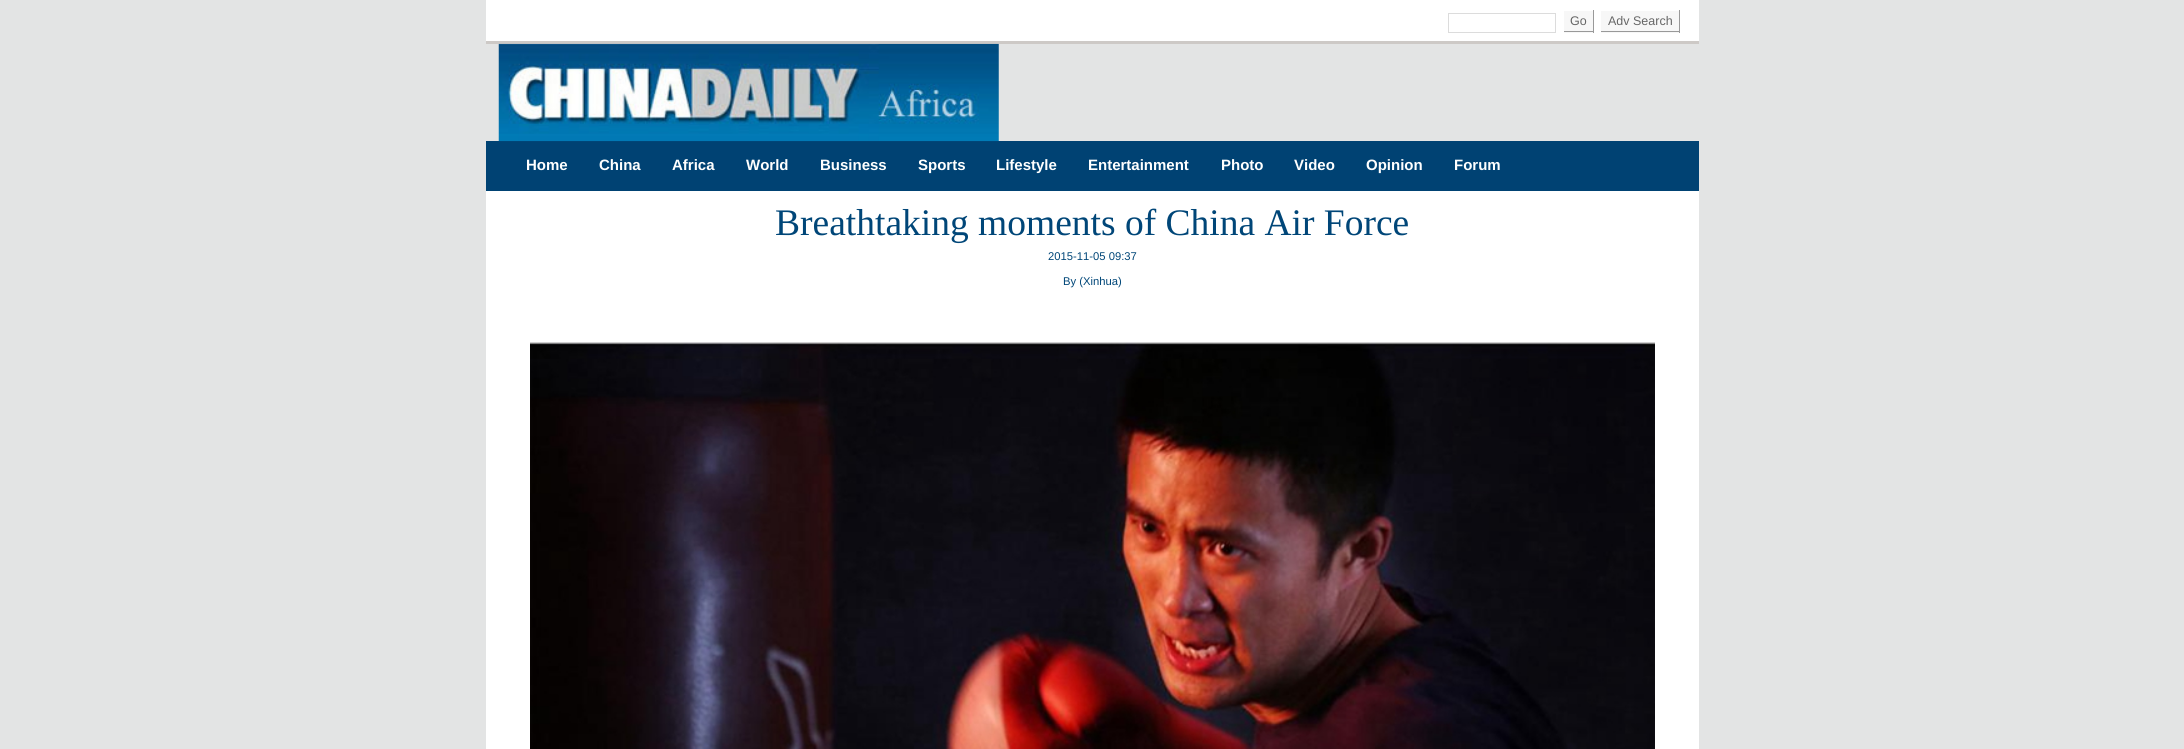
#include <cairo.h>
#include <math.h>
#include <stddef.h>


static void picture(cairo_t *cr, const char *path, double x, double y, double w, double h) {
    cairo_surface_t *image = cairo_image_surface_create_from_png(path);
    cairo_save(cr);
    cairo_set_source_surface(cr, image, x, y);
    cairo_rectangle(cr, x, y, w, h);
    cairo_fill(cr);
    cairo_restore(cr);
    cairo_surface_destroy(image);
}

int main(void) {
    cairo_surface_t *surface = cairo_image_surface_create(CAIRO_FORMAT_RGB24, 2184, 749);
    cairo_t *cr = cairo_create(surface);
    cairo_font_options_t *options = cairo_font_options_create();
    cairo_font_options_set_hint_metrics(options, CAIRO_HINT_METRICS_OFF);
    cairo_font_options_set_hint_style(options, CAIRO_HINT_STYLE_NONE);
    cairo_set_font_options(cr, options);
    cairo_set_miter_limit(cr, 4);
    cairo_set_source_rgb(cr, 0.89, 0.894, 0.894);
    cairo_paint(cr);
    cairo_set_source_rgb(cr, 1, 1, 1);
    cairo_rectangle(cr, 486, 0, 1213, 41);
    cairo_fill(cr);
    cairo_set_source_rgb(cr, 0.804, 0.788, 0.776);
    cairo_rectangle(cr, 486, 41, 1213, 3);
    cairo_fill(cr);
    cairo_rectangle(cr, 1448.5, 13.5, 107, 19);
    cairo_set_source_rgb(cr, 0.863, 0.863, 0.863);
    cairo_set_line_width(cr, 1);
    cairo_stroke(cr);
    cairo_set_source_rgb(cr, 0.965, 0.965, 0.965);
    cairo_rectangle(cr, 1564, 11, 29, 22);
    cairo_fill(cr);
    cairo_set_source_rgb(cr, 0.6, 0.6, 0.6);
    cairo_rectangle(cr, 1593, 10, 1, 23);
    cairo_fill(cr);
    cairo_rectangle(cr, 1563, 31, 31, 1);
    cairo_fill(cr);
    cairo_set_source_rgb(cr, 1, 1, 1);
    cairo_rectangle(cr, 1563, 31, 1, 2);
    cairo_fill(cr);
    cairo_select_font_face(cr, "Liberation Sans", CAIRO_FONT_SLANT_NORMAL, CAIRO_FONT_WEIGHT_NORMAL);
    cairo_set_font_size(cr, 12.5);
    cairo_set_source_rgb(cr, 0.4, 0.4, 0.4);
    cairo_move_to(cr, 1570, 25);
    cairo_show_text(cr, "Go");
    cairo_set_source_rgb(cr, 0.965, 0.965, 0.965);
    cairo_rectangle(cr, 1601, 11, 78, 22);
    cairo_fill(cr);
    cairo_set_source_rgb(cr, 0.6, 0.6, 0.6);
    cairo_rectangle(cr, 1679, 10, 1, 23);
    cairo_fill(cr);
    cairo_rectangle(cr, 1600, 31, 80, 1);
    cairo_fill(cr);
    cairo_set_source_rgb(cr, 1, 1, 1);
    cairo_rectangle(cr, 1600, 31, 1, 2);
    cairo_fill(cr);
    cairo_set_source_rgb(cr, 0.4, 0.4, 0.4);
    cairo_move_to(cr, 1608, 25);
    cairo_show_text(cr, "Adv Search");
    cairo_set_source_rgb(cr, 0, 0.259, 0.451);
    cairo_rectangle(cr, 486, 141, 1213, 50);
    cairo_fill(cr);
    picture(cr, "img1.png", 498, 43, 501, 99);
    cairo_select_font_face(cr, "Liberation Sans", CAIRO_FONT_SLANT_NORMAL, CAIRO_FONT_WEIGHT_BOLD);
    cairo_set_font_size(cr, 15);
    cairo_set_source_rgb(cr, 1, 1, 1);
    cairo_move_to(cr, 526, 170);
    cairo_show_text(cr, "Home");
    cairo_move_to(cr, 599, 170);
    cairo_show_text(cr, "China");
    cairo_move_to(cr, 672, 170);
    cairo_show_text(cr, "Africa");
    cairo_move_to(cr, 746, 170);
    cairo_show_text(cr, "World");
    cairo_move_to(cr, 820, 170);
    cairo_show_text(cr, "Business");
    cairo_move_to(cr, 918, 170);
    cairo_show_text(cr, "Sports");
    cairo_move_to(cr, 996, 170);
    cairo_show_text(cr, "Lifestyle");
    cairo_move_to(cr, 1088, 170);
    cairo_show_text(cr, "Entertainment");
    cairo_move_to(cr, 1221, 170);
    cairo_show_text(cr, "Photo");
    cairo_move_to(cr, 1294, 170);
    cairo_show_text(cr, "Video");
    cairo_move_to(cr, 1366, 170);
    cairo_show_text(cr, "Opinion");
    cairo_move_to(cr, 1454, 170);
    cairo_show_text(cr, "Forum");
    cairo_rectangle(cr, 486, 191, 1213, 558);
    cairo_fill(cr);
    cairo_select_font_face(cr, "Liberation Serif", CAIRO_FONT_SLANT_NORMAL, CAIRO_FONT_WEIGHT_NORMAL);
    cairo_set_font_size(cr, 37.5);
    cairo_set_source_rgb(cr, 0, 0.275, 0.471);
    cairo_move_to(cr, 775, 235);
    cairo_show_text(cr, "Breathtaking moments of China Air Force");
    cairo_select_font_face(cr, "Liberation Sans", CAIRO_FONT_SLANT_NORMAL, CAIRO_FONT_WEIGHT_NORMAL);
    cairo_set_font_size(cr, 11.25);
    cairo_move_to(cr, 1048, 260);
    cairo_show_text(cr, "2015-11-05 09:37");
    cairo_move_to(cr, 1063, 285);
    cairo_show_text(cr, "By (Xinhua)");
    picture(cr, "img2.png", 530, 342, 1125, 407);
    cairo_surface_write_to_png(surface, "page.png");
    cairo_font_options_destroy(options);
    cairo_destroy(cr);
    cairo_surface_destroy(surface);
    return 0;
}
